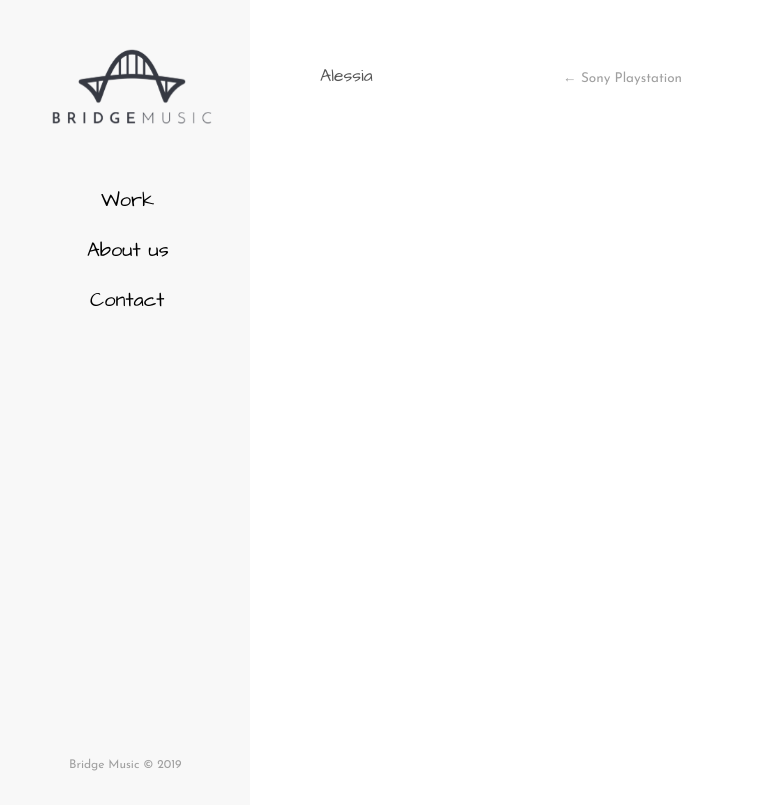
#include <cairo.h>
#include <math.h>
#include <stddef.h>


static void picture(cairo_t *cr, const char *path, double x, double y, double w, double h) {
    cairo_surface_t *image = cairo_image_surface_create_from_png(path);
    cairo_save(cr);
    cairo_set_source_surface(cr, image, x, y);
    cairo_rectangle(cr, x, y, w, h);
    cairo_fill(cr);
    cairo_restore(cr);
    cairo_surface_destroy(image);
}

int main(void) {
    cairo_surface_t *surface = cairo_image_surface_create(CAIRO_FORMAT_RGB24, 773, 805);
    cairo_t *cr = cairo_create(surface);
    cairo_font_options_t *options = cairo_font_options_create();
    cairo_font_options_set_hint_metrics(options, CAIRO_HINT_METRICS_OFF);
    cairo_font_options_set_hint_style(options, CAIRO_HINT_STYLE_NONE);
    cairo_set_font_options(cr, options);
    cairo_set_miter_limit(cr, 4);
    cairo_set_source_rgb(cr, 1, 1, 1);
    cairo_paint(cr);
    cairo_select_font_face(cr, "Architects Daughter", CAIRO_FONT_SLANT_NORMAL, CAIRO_FONT_WEIGHT_NORMAL);
    cairo_set_font_size(cr, 17.5);
    cairo_set_source_rgb(cr, 0.333, 0.333, 0.333);
    cairo_move_to(cr, 320, 81);
    cairo_show_text(cr, "Alessia");
    cairo_select_font_face(cr, "Liberation Serif", CAIRO_FONT_SLANT_NORMAL, CAIRO_FONT_WEIGHT_NORMAL);
    cairo_set_font_size(cr, 13.5);
    cairo_set_source_rgb(cr, 0.627, 0.627, 0.627);
    cairo_move_to(cr, 563, 82);
    cairo_show_text(cr, "←");
    cairo_select_font_face(cr, "Josefin Sans", CAIRO_FONT_SLANT_NORMAL, CAIRO_FONT_WEIGHT_NORMAL);
    cairo_move_to(cr, 581, 82);
    cairo_show_text(cr, "Sony Playstation");
    cairo_set_source_rgb(cr, 0.969, 0.969, 0.969);
    cairo_rectangle(cr, 0, 0, 250, 805);
    cairo_fill(cr);
    cairo_set_font_size(cr, 12);
    cairo_set_source_rgb(cr, 0.627, 0.627, 0.627);
    cairo_move_to(cr, 69, 768);
    cairo_show_text(cr, "Bridge Music © 2019");
    picture(cr, "img1.png", 52, 49, 160, 75);
    cairo_select_font_face(cr, "Architects Daughter", CAIRO_FONT_SLANT_NORMAL, CAIRO_FONT_WEIGHT_NORMAL);
    cairo_set_font_size(cr, 20);
    cairo_set_source_rgb(cr, 0, 0, 0);
    cairo_move_to(cr, 101, 206);
    cairo_show_text(cr, "Work");
    cairo_move_to(cr, 87, 256);
    cairo_show_text(cr, "About us");
    cairo_move_to(cr, 90, 306);
    cairo_show_text(cr, "Contact");
    cairo_surface_write_to_png(surface, "page.png");
    cairo_font_options_destroy(options);
    cairo_destroy(cr);
    cairo_surface_destroy(surface);
    return 0;
}
